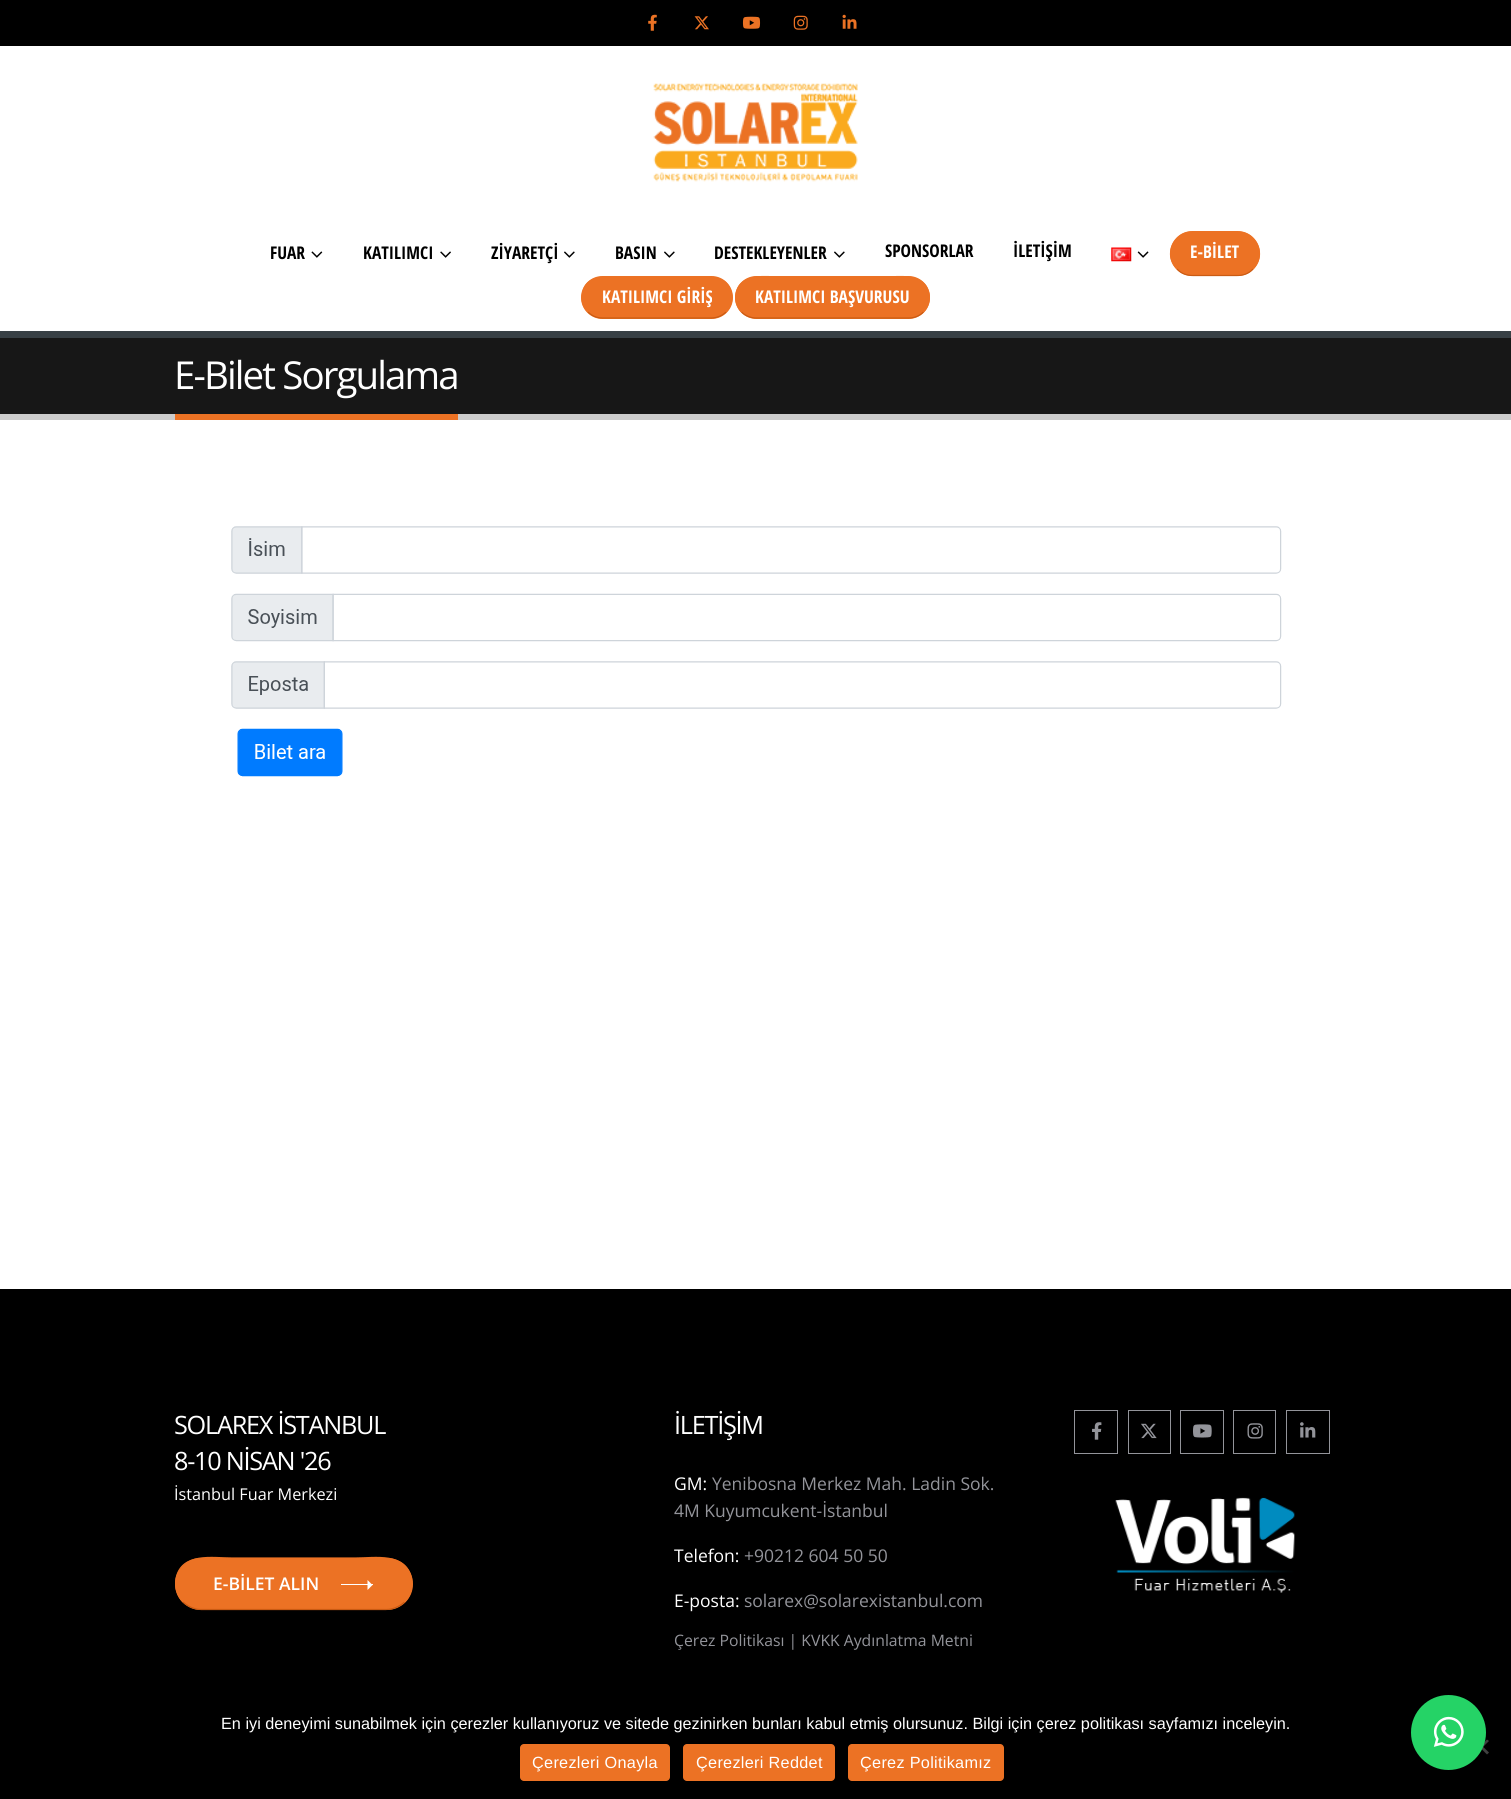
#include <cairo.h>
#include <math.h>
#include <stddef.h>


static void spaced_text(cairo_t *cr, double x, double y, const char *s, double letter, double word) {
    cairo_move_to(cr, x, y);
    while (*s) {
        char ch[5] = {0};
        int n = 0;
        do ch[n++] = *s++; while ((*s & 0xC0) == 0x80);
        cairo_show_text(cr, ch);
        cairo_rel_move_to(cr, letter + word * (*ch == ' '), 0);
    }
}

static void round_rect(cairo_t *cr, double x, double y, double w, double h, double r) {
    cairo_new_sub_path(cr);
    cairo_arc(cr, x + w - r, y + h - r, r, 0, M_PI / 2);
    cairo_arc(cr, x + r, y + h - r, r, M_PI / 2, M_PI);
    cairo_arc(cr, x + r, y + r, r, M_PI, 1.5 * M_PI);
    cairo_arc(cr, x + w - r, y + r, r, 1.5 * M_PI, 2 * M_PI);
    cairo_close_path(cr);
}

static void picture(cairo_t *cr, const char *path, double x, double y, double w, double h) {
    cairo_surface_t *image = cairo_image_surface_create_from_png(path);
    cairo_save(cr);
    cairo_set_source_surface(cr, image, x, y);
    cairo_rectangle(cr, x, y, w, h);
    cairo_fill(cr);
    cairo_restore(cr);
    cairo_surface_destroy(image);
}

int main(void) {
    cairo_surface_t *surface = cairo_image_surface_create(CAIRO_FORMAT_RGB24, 1511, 1799);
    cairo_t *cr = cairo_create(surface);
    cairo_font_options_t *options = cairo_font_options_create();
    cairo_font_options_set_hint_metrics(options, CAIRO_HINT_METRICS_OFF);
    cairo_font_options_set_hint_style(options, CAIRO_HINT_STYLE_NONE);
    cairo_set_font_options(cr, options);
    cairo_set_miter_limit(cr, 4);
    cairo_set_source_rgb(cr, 1, 1, 1);
    cairo_paint(cr);
    cairo_set_source_rgb(cr, 0, 0, 0);
    cairo_rectangle(cr, 0, 0, 1511, 46);
    cairo_fill(cr);
    picture(cr, "img1.png", 648, 14, 9, 17);
    picture(cr, "img2.png", 694, 16, 15, 14);
    picture(cr, "img3.png", 742, 16, 19, 13);
    picture(cr, "img4.png", 793, 15, 15, 15);
    picture(cr, "img5.png", 842, 14, 15, 15);
    picture(cr, "img6.png", 653, 83, 205, 99);
    cairo_select_font_face(cr, "Open Sans Condensed", CAIRO_FONT_SLANT_NORMAL, CAIRO_FONT_WEIGHT_BOLD);
    cairo_set_font_size(cr, 17.5);
    cairo_move_to(cr, 270, 259);
    cairo_show_text(cr, "FUAR");
    picture(cr, "img7.png", 311, 251, 12, 7);
    cairo_move_to(cr, 363, 259);
    cairo_show_text(cr, "KATILIMCI");
    picture(cr, "img8.png", 440, 251, 11, 7);
    cairo_move_to(cr, 491, 259);
    cairo_show_text(cr, "ZİYARETÇİ");
    picture(cr, "img9.png", 564, 251, 11, 7);
    cairo_move_to(cr, 615, 259);
    cairo_show_text(cr, "BASIN");
    picture(cr, "img9.png", 664, 251, 11, 7);
    cairo_move_to(cr, 714, 259);
    cairo_show_text(cr, "DESTEKLEYENLER");
    picture(cr, "img9.png", 834, 251, 11, 7);
    cairo_move_to(cr, 885, 257);
    cairo_show_text(cr, "SPONSORLAR");
    cairo_move_to(cr, 1013, 257);
    cairo_show_text(cr, "İLETİŞİM");
    picture(cr, "img10.png", 1111, 247, 21, 15);
    picture(cr, "img11.png", 1137, 251, 12, 7);
    cairo_set_source_rgb(cr, 0.922, 0.447, 0.141);
    round_rect(cr, 1170, 231, 90, 45, 22.5);
    cairo_fill(cr);
    cairo_new_path(cr);
    cairo_move_to(cr, 1253, 269);
    cairo_curve_to(cr, 1249, 273.5, 1243.5, 275.5, 1237.5, 275.5);
    cairo_line_to(cr, 1192.5, 275.5);
    cairo_curve_to(cr, 1186.5, 275.5, 1181, 273.5, 1177, 269);
    cairo_set_source_rgb(cr, 0.792, 0.357, 0.075);
    cairo_set_line_width(cr, 1.2);
    cairo_stroke(cr);
    cairo_new_path(cr);
    cairo_move_to(cr, 1177, 269);
    cairo_curve_to(cr, 1173, 265, 1170.5, 259.5, 1170.5, 254);
    cairo_curve_to(cr, 1170.5, 248, 1173, 242.5, 1177, 238.5);
    cairo_curve_to(cr, 1181, 234, 1186.5, 232, 1192.5, 232);
    cairo_line_to(cr, 1237.5, 232);
    cairo_curve_to(cr, 1243.5, 232, 1249, 234, 1253, 238.5);
    cairo_curve_to(cr, 1257, 242.5, 1259.5, 248, 1259.5, 254);
    cairo_curve_to(cr, 1259.5, 259.5, 1257, 265, 1253, 269);
    cairo_set_source_rgb(cr, 0.922, 0.447, 0.141);
    cairo_stroke(cr);
    cairo_set_source_rgb(cr, 1, 1, 1);
    cairo_move_to(cr, 1190, 258);
    cairo_show_text(cr, "E-BİLET");
    cairo_set_source_rgb(cr, 0.922, 0.447, 0.141);
    round_rect(cr, 581, 276, 152, 43, 21.5);
    cairo_fill(cr);
    cairo_new_path(cr);
    cairo_move_to(cr, 726, 312);
    cairo_curve_to(cr, 722, 316, 716.5, 318, 711, 318);
    cairo_line_to(cr, 602.5, 318);
    cairo_curve_to(cr, 597, 318, 592, 316, 588, 312);
    cairo_set_source_rgb(cr, 0.792, 0.357, 0.075);
    cairo_stroke(cr);
    cairo_new_path(cr);
    cairo_move_to(cr, 588, 312);
    cairo_curve_to(cr, 583, 307.5, 581, 300, 582.5, 293.5);
    cairo_curve_to(cr, 586, 274, 605.5, 277, 620.5, 277);
    cairo_line_to(cr, 693, 277);
    cairo_curve_to(cr, 708, 277, 727.5, 274, 731.5, 293.5);
    cairo_curve_to(cr, 733, 300, 730.5, 307.5, 726, 312);
    cairo_set_source_rgb(cr, 0.922, 0.447, 0.141);
    cairo_stroke(cr);
    cairo_set_source_rgb(cr, 1, 1, 1);
    cairo_move_to(cr, 602, 303);
    cairo_show_text(cr, "KATILIMCI GİRİŞ");
    cairo_set_source_rgb(cr, 0.922, 0.447, 0.141);
    round_rect(cr, 735, 276, 195, 43, 21.5);
    cairo_fill(cr);
    cairo_new_path(cr);
    cairo_move_to(cr, 923.5, 312);
    cairo_curve_to(cr, 919.5, 316, 914, 318, 909, 318);
    cairo_line_to(cr, 756, 318);
    cairo_curve_to(cr, 751, 318, 745.5, 316, 741.5, 312);
    cairo_set_source_rgb(cr, 0.792, 0.357, 0.075);
    cairo_stroke(cr);
    cairo_new_path(cr);
    cairo_move_to(cr, 741.5, 312);
    cairo_curve_to(cr, 737, 307.5, 734.5, 300, 736, 293.5);
    cairo_curve_to(cr, 740.5, 272, 766, 277, 781.5, 277);
    cairo_line_to(cr, 883.5, 277);
    cairo_curve_to(cr, 899, 277, 924.5, 272, 929, 293.5);
    cairo_curve_to(cr, 930.5, 300, 928, 307.5, 923.5, 312);
    cairo_set_source_rgb(cr, 0.922, 0.447, 0.141);
    cairo_stroke(cr);
    cairo_set_source_rgb(cr, 1, 1, 1);
    cairo_move_to(cr, 755, 303);
    cairo_show_text(cr, "KATILIMCI BAŞVURUSU");
    cairo_set_source_rgb(cr, 0.09, 0.09, 0.09);
    cairo_rectangle(cr, 0, 338, 1511, 76);
    cairo_fill(cr);
    cairo_set_source_rgb(cr, 0.22, 0.251, 0.271);
    cairo_rectangle(cr, 0, 331, 1511, 7);
    cairo_fill(cr);
    cairo_set_source_rgb(cr, 0.8, 0.8, 0.8);
    cairo_rectangle(cr, 0, 414, 1511, 6);
    cairo_fill(cr);
    cairo_select_font_face(cr, "Open Sans", CAIRO_FONT_SLANT_NORMAL, CAIRO_FONT_WEIGHT_NORMAL);
    cairo_set_font_size(cr, 38.5);
    cairo_set_source_rgb(cr, 1, 1, 1);
    spaced_text(cr, 174, 389, "E-Bilet Sorgulama", -1.9, 0);
    cairo_set_source_rgb(cr, 0.922, 0.447, 0.141);
    cairo_rectangle(cr, 175, 414, 283, 6);
    cairo_fill(cr);
    picture(cr, "img12.png", 231, 526, 1051, 251);
    cairo_set_source_rgb(cr, 0, 0, 0);
    cairo_rectangle(cr, 0, 1289, 1511, 510);
    cairo_fill(cr);
    cairo_set_font_size(cr, 25.25);
    cairo_set_source_rgb(cr, 1, 1, 1);
    spaced_text(cr, 174, 1434, "SOLAREX İSTANBUL", -1.25, 0);
    spaced_text(cr, 174, 1470, "8-10 NİSAN '26", -1.25, 0);
    cairo_set_font_size(cr, 16.25);
    cairo_move_to(cr, 174, 1500);
    cairo_show_text(cr, "İstanbul Fuar Merkezi");
    cairo_set_source_rgb(cr, 0.922, 0.447, 0.141);
    round_rect(cr, 175, 1558, 238, 52, 26);
    cairo_fill(cr);
    cairo_new_path(cr);
    cairo_move_to(cr, 404.5, 1602);
    cairo_curve_to(cr, 399.5, 1606.5, 393, 1609.5, 386, 1609.5);
    cairo_line_to(cr, 201, 1609.5);
    cairo_curve_to(cr, 194.5, 1609.5, 188, 1606.5, 183, 1602);
    cairo_set_source_rgb(cr, 0.792, 0.357, 0.075);
    cairo_stroke(cr);
    cairo_new_path(cr);
    cairo_move_to(cr, 183, 1602);
    cairo_curve_to(cr, 177, 1596, 174.5, 1587, 176, 1578.5);
    cairo_curve_to(cr, 181.5, 1552, 212.5, 1558, 232, 1558);
    cairo_line_to(cr, 355.5, 1558);
    cairo_curve_to(cr, 375, 1558, 406, 1552, 411.5, 1578.5);
    cairo_curve_to(cr, 413, 1587, 410.5, 1596, 404.5, 1602);
    cairo_set_source_rgb(cr, 0.922, 0.447, 0.141);
    cairo_stroke(cr);
    cairo_select_font_face(cr, "Open Sans SemiBold", CAIRO_FONT_SLANT_NORMAL, CAIRO_FONT_WEIGHT_NORMAL);
    cairo_set_font_size(cr, 17.5);
    cairo_set_source_rgb(cr, 1, 1, 1);
    cairo_move_to(cr, 213, 1590);
    cairo_show_text(cr, "E-BİLET ALIN");
    cairo_rectangle(cr, 341, 1584, 32, 1);
    cairo_fill(cr);
    cairo_new_path(cr);
    cairo_move_to(cr, 367.5, 1590);
    cairo_line_to(cr, 367.5, 1580);
    cairo_line_to(cr, 372.5, 1585);
    cairo_close_path(cr);
    cairo_fill(cr);
    cairo_select_font_face(cr, "Open Sans", CAIRO_FONT_SLANT_NORMAL, CAIRO_FONT_WEIGHT_NORMAL);
    cairo_set_font_size(cr, 25.25);
    spaced_text(cr, 674, 1434, "İLETİŞİM", -1.25, 0);
    cairo_set_font_size(cr, 17.5);
    cairo_move_to(cr, 674, 1490);
    cairo_show_text(cr, "GM:");
    cairo_set_source_rgb(cr, 0.576, 0.58, 0.604);
    cairo_move_to(cr, 712, 1490);
    cairo_show_text(cr, "Yenibosna Merkez Mah. Ladin Sok.");
    cairo_move_to(cr, 674, 1517);
    cairo_show_text(cr, "4M Kuyumcukent-İstanbul");
    cairo_set_source_rgb(cr, 1, 1, 1);
    cairo_move_to(cr, 674, 1562);
    cairo_show_text(cr, "Telefon:");
    cairo_set_source_rgb(cr, 0.576, 0.58, 0.604);
    cairo_move_to(cr, 744, 1562);
    cairo_show_text(cr, "+90212 604 50 50");
    cairo_set_source_rgb(cr, 1, 1, 1);
    cairo_move_to(cr, 674, 1607);
    cairo_show_text(cr, "E-posta:");
    cairo_set_source_rgb(cr, 0.576, 0.58, 0.604);
    cairo_move_to(cr, 744, 1607);
    cairo_show_text(cr, "solarex@solarexistanbul.com");
    cairo_set_font_size(cr, 15.75);
    cairo_move_to(cr, 674, 1646);
    cairo_show_text(cr, "Çerez Politikası | KVKK Aydınlatma Metni");
    cairo_rectangle(cr, 1074.5, 1410.5, 43, 43);
    cairo_set_line_width(cr, 1);
    cairo_stroke(cr);
    picture(cr, "img13.png", 1092, 1422, 10, 18);
    cairo_rectangle(cr, 1128.5, 1410.5, 42, 43);
    cairo_stroke(cr);
    picture(cr, "img14.png", 1141, 1423, 16, 16);
    cairo_rectangle(cr, 1180.5, 1410.5, 43, 43);
    cairo_stroke(cr);
    picture(cr, "img15.png", 1193, 1424, 19, 14);
    cairo_rectangle(cr, 1233.5, 1410.5, 42, 43);
    cairo_stroke(cr);
    picture(cr, "img16.png", 1247, 1423, 16, 16);
    cairo_rectangle(cr, 1286.5, 1410.5, 43, 43);
    cairo_stroke(cr);
    picture(cr, "img17.png", 1300, 1422, 16, 16);
    picture(cr, "img18.png", 1115, 1497, 180, 96);
    cairo_select_font_face(cr, "Liberation Sans", CAIRO_FONT_SLANT_NORMAL, CAIRO_FONT_WEIGHT_NORMAL);
    cairo_set_font_size(cr, 16.25);
    cairo_set_source_rgb(cr, 1, 1, 1);
    cairo_move_to(cr, 221, 1729);
    cairo_show_text(cr, "En iyi deneyimi sunabilmek için çerezler kullanıyoruz ve sitede gezinirken bunları kabul etmiş olursunuz. Bilgi için çerez politikası sayfamızı inceleyin.");
    cairo_set_source_rgb(cr, 0.251, 0.251, 0.251);
    cairo_new_path(cr);
    cairo_move_to(cr, 1487, 1739.5);
    cairo_line_to(cr, 1489, 1741);
    cairo_line_to(cr, 1475.5, 1754.5);
    cairo_line_to(cr, 1473.5, 1752.5);
    cairo_close_path(cr);
    cairo_fill(cr);
    cairo_new_path(cr);
    cairo_move_to(cr, 1473.5, 1741);
    cairo_line_to(cr, 1475.5, 1739.5);
    cairo_line_to(cr, 1489, 1752.5);
    cairo_line_to(cr, 1487, 1754.5);
    cairo_close_path(cr);
    cairo_fill(cr);
    cairo_set_source_rgb(cr, 0.922, 0.447, 0.141);
    round_rect(cr, 520, 1744, 150, 37, 4);
    cairo_fill(cr);
    cairo_set_source_rgb(cr, 1, 1, 1);
    spaced_text(cr, 532, 1768, "Çerezleri Onayla", 0.3, 0);
    cairo_set_source_rgb(cr, 0.922, 0.447, 0.141);
    round_rect(cr, 683, 1744, 152, 37, 4);
    cairo_fill(cr);
    cairo_set_source_rgb(cr, 1, 1, 1);
    spaced_text(cr, 696, 1768, "Çerezleri Reddet", 0.3, 0);
    cairo_set_source_rgb(cr, 0.922, 0.447, 0.141);
    round_rect(cr, 848, 1744, 156, 37, 4);
    cairo_fill(cr);
    cairo_set_source_rgb(cr, 1, 1, 1);
    spaced_text(cr, 860, 1768, "Çerez Politikamız", 0.3, 0);
    cairo_set_source_rgb(cr, 0.145, 0.827, 0.4);
    cairo_new_path(cr);
    cairo_arc(cr, 1448.5, 1732.5, 37.5, 0, 2 * M_PI);
    cairo_fill(cr);
    picture(cr, "img19.png", 1433, 1716, 31, 31);
    cairo_surface_write_to_png(surface, "page.png");
    cairo_font_options_destroy(options);
    cairo_destroy(cr);
    cairo_surface_destroy(surface);
    return 0;
}
